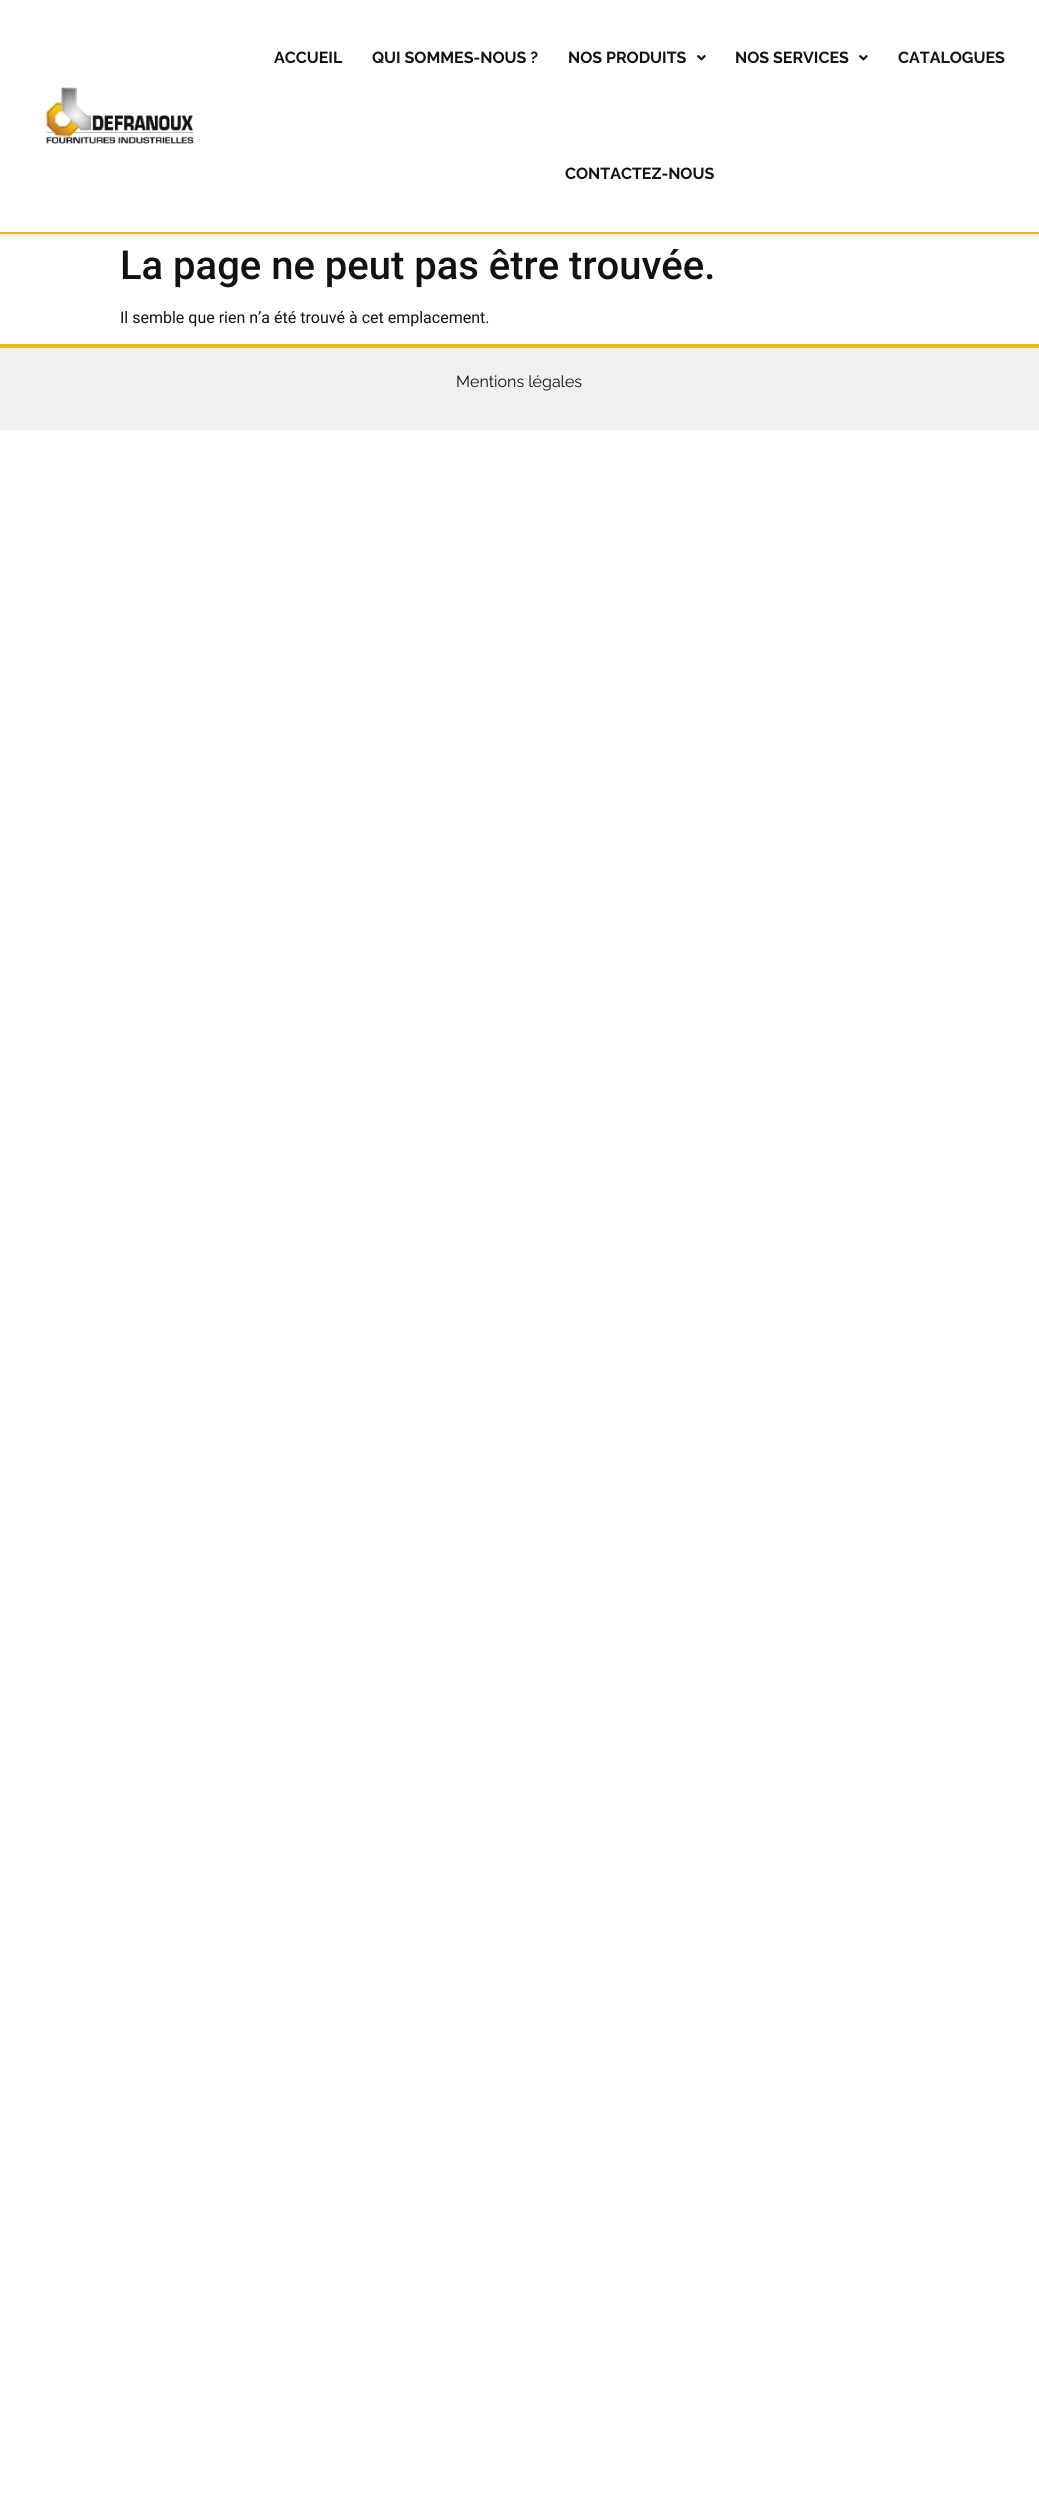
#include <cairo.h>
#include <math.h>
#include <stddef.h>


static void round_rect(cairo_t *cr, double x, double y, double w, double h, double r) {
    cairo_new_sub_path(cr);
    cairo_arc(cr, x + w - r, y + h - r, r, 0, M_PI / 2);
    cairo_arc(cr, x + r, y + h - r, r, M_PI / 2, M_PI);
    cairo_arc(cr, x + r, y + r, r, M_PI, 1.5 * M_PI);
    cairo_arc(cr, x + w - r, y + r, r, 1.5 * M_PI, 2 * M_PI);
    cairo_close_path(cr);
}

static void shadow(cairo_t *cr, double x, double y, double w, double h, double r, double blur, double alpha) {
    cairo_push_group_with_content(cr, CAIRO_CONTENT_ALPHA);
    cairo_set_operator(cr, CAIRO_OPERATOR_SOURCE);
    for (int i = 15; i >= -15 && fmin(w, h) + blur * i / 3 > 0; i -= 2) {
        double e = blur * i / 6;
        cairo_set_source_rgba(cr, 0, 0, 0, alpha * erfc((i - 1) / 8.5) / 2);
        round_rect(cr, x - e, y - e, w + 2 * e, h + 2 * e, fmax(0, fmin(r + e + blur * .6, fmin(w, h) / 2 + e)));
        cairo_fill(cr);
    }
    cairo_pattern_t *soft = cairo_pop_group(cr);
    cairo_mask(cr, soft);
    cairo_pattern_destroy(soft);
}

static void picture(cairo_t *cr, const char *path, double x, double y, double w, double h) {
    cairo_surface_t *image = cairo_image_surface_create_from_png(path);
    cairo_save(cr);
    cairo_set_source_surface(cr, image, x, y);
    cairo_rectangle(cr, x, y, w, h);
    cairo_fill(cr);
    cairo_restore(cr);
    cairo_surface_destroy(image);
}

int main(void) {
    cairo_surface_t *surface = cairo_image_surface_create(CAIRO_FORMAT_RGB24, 1039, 2512);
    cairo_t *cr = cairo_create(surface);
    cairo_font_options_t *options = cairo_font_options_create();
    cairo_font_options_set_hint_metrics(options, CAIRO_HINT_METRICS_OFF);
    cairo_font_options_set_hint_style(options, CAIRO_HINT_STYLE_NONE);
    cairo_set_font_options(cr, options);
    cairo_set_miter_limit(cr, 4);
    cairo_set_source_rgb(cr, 1, 1, 1);
    cairo_paint(cr);
    cairo_save(cr);
    cairo_rectangle(cr, 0, 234, 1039, 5);
    cairo_clip(cr);
    cairo_set_source_rgb(cr, 0, 0, 0);
    shadow(cr, 0, 0, 1039, 234, 0, 5, 0.14);
    cairo_restore(cr);
    cairo_set_source_rgb(cr, 0.953, 0.714, 0.004);
    cairo_rectangle(cr, 0, 232, 1039, 2);
    cairo_fill(cr);
    picture(cr, "img1.png", 45, 87, 149, 57);
    cairo_select_font_face(cr, "Raleway", CAIRO_FONT_SLANT_NORMAL, CAIRO_FONT_WEIGHT_BOLD);
    cairo_set_font_size(cr, 16);
    cairo_set_source_rgb(cr, 0.071, 0.071, 0.071);
    cairo_move_to(cr, 274, 63);
    cairo_show_text(cr, "ACCUEIL");
    cairo_move_to(cr, 372, 63);
    cairo_show_text(cr, "QUI SOMMES-NOUS ?");
    cairo_move_to(cr, 568, 63);
    cairo_show_text(cr, "NOS PRODUITS");
    picture(cr, "img2.png", 697, 55, 9, 6);
    cairo_move_to(cr, 735, 63);
    cairo_show_text(cr, "NOS SERVICES");
    picture(cr, "img2.png", 859, 55, 9, 6);
    cairo_move_to(cr, 898, 63);
    cairo_show_text(cr, "CATALOGUES");
    cairo_move_to(cr, 565, 179);
    cairo_show_text(cr, "CONTACTEZ-NOUS");
    cairo_select_font_face(cr, "Roboto Medium", CAIRO_FONT_SLANT_NORMAL, CAIRO_FONT_WEIGHT_NORMAL);
    cairo_set_font_size(cr, 40);
    cairo_move_to(cr, 120, 279);
    cairo_show_text(cr, "La page ne peut pas être trouvée.");
    cairo_select_font_face(cr, "Roboto", CAIRO_FONT_SLANT_NORMAL, CAIRO_FONT_WEIGHT_NORMAL);
    cairo_set_font_size(cr, 16);
    cairo_move_to(cr, 120, 323);
    cairo_show_text(cr, "Il semble que rien n’a été trouvé à cet emplacement.");
    cairo_set_source_rgb(cr, 0.941, 0.941, 0.941);
    cairo_rectangle(cr, 0, 348, 1039, 82);
    cairo_fill(cr);
    cairo_set_source_rgb(cr, 0.953, 0.714, 0.004);
    cairo_rectangle(cr, 0, 344, 1039, 4);
    cairo_fill(cr);
    cairo_select_font_face(cr, "Raleway", CAIRO_FONT_SLANT_NORMAL, CAIRO_FONT_WEIGHT_NORMAL);
    cairo_set_source_rgb(cr, 0.071, 0.071, 0.071);
    cairo_move_to(cr, 456, 387);
    cairo_show_text(cr, "Mentions légales");
    cairo_surface_write_to_png(surface, "page.png");
    cairo_font_options_destroy(options);
    cairo_destroy(cr);
    cairo_surface_destroy(surface);
    return 0;
}
